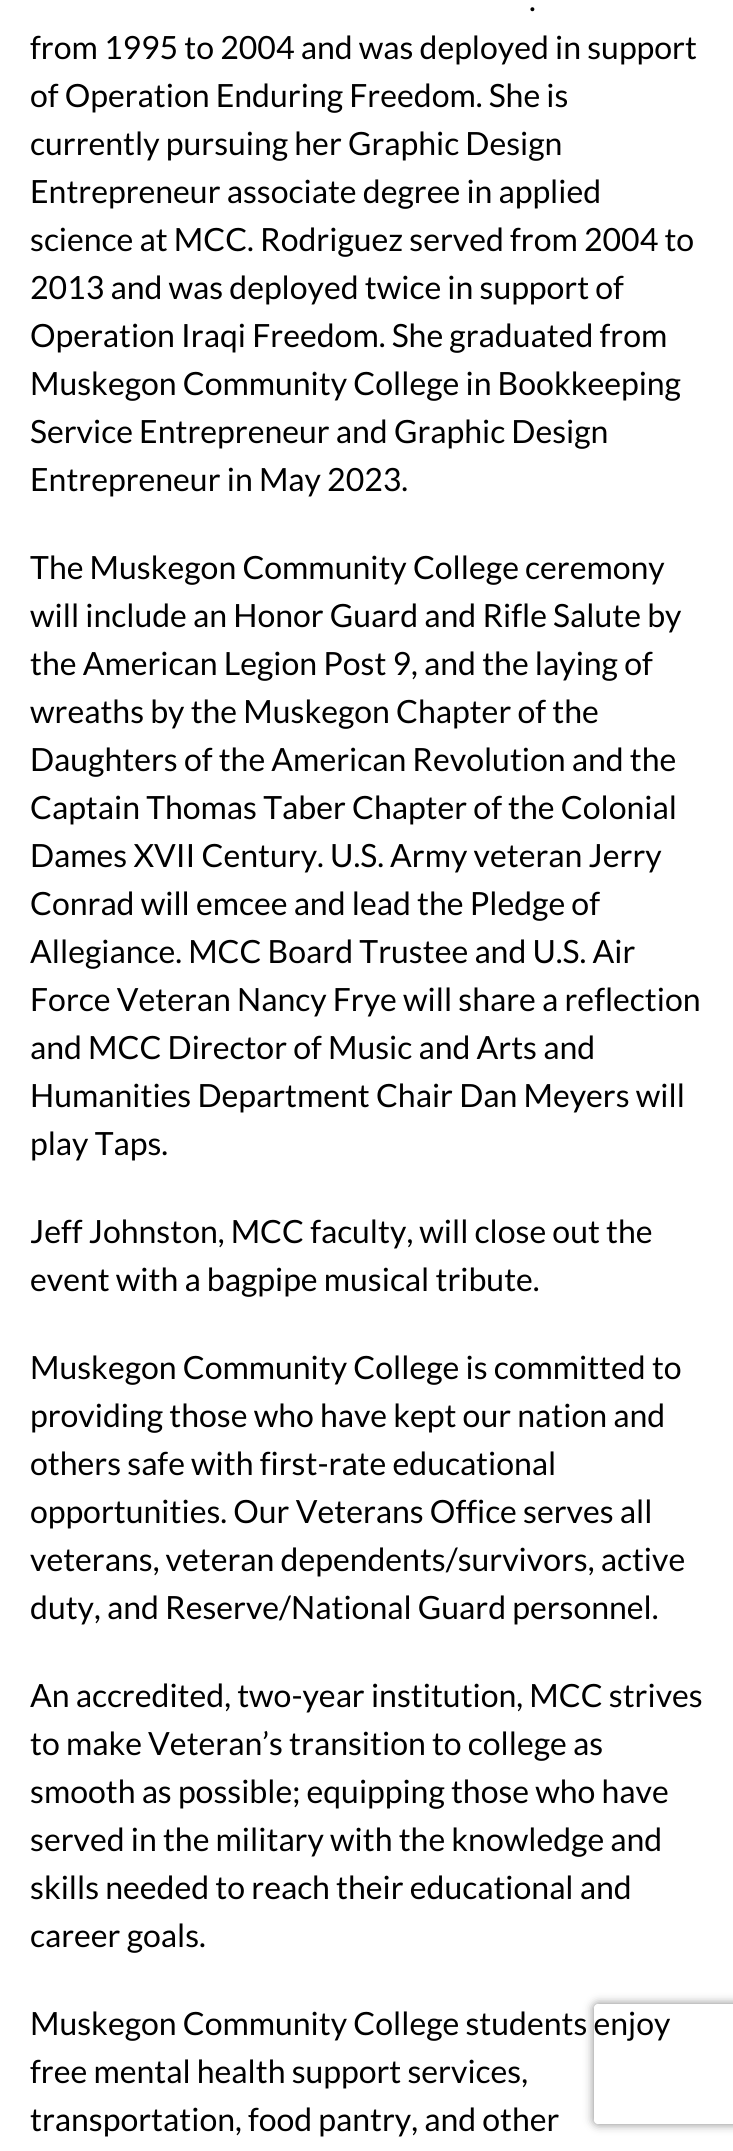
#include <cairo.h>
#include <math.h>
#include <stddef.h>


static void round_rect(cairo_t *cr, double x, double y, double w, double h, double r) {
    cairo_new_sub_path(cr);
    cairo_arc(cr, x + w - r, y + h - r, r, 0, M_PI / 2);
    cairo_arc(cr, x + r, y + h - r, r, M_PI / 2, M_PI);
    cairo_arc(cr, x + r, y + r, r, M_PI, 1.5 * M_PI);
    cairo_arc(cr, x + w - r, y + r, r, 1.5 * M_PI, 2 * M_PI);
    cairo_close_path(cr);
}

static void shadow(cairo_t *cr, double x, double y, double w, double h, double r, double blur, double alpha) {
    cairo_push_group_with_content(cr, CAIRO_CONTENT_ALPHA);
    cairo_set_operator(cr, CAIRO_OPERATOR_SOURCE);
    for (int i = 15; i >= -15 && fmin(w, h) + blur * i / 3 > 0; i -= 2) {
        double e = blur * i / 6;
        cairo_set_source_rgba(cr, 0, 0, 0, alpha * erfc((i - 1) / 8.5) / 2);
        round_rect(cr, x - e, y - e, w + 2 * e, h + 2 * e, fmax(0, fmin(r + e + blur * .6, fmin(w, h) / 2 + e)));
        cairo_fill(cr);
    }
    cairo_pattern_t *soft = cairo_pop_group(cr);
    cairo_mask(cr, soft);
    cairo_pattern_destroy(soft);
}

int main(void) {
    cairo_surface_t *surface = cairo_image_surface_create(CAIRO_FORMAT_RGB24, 733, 2151);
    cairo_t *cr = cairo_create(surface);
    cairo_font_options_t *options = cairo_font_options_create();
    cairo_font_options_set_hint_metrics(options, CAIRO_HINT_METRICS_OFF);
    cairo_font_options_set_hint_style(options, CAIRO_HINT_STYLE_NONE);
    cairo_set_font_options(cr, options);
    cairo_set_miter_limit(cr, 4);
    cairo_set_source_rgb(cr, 1, 1, 1);
    cairo_paint(cr);
    cairo_select_font_face(cr, "Lato", CAIRO_FONT_SLANT_NORMAL, CAIRO_FONT_WEIGHT_NORMAL);
    cairo_set_font_size(cr, 32);
    cairo_set_source_rgb(cr, 0, 0, 0);
    cairo_move_to(cr, 529, 11);
    cairo_show_text(cr, ".");
    cairo_move_to(cr, 30, 59);
    cairo_show_text(cr, "from 1995 to 2004 and was deployed in support");
    cairo_move_to(cr, 30, 107);
    cairo_show_text(cr, "of Operation Enduring Freedom. She is");
    cairo_move_to(cr, 30, 155);
    cairo_show_text(cr, "currently pursuing her Graphic Design");
    cairo_move_to(cr, 30, 203);
    cairo_show_text(cr, "Entrepreneur associate degree in applied");
    cairo_move_to(cr, 30, 251);
    cairo_show_text(cr, "science at MCC. Rodriguez served from 2004 to");
    cairo_move_to(cr, 30, 299);
    cairo_show_text(cr, "2013 and was deployed twice in support of");
    cairo_move_to(cr, 30, 347);
    cairo_show_text(cr, "Operation Iraqi Freedom. She graduated from");
    cairo_move_to(cr, 30, 395);
    cairo_show_text(cr, "Muskegon Community College in Bookkeeping");
    cairo_move_to(cr, 30, 443);
    cairo_show_text(cr, "Service Entrepreneur and Graphic Design");
    cairo_move_to(cr, 30, 491);
    cairo_show_text(cr, "Entrepreneur in May 2023.");
    cairo_move_to(cr, 30, 579);
    cairo_show_text(cr, "The Muskegon Community College ceremony");
    cairo_move_to(cr, 30, 627);
    cairo_show_text(cr, "will include an Honor Guard and Rifle Salute by");
    cairo_move_to(cr, 30, 675);
    cairo_show_text(cr, "the American Legion Post 9, and the laying of");
    cairo_move_to(cr, 30, 723);
    cairo_show_text(cr, "wreaths by the Muskegon Chapter of the");
    cairo_move_to(cr, 30, 771);
    cairo_show_text(cr, "Daughters of the American Revolution and the");
    cairo_move_to(cr, 30, 819);
    cairo_show_text(cr, "Captain Thomas Taber Chapter of the Colonial");
    cairo_move_to(cr, 30, 867);
    cairo_show_text(cr, "Dames XVII Century. U.S. Army veteran Jerry");
    cairo_move_to(cr, 30, 915);
    cairo_show_text(cr, "Conrad will emcee and lead the Pledge of");
    cairo_move_to(cr, 30, 963);
    cairo_show_text(cr, "Allegiance. MCC Board Trustee and U.S. Air");
    cairo_move_to(cr, 30, 1011);
    cairo_show_text(cr, "Force Veteran Nancy Frye will share a reflection");
    cairo_move_to(cr, 30, 1059);
    cairo_show_text(cr, "and MCC Director of Music and Arts and");
    cairo_move_to(cr, 30, 1107);
    cairo_show_text(cr, "Humanities Department Chair Dan Meyers will");
    cairo_move_to(cr, 30, 1155);
    cairo_show_text(cr, "play Taps.");
    cairo_move_to(cr, 30, 1243);
    cairo_show_text(cr, "Jeff Johnston, MCC faculty, will close out the");
    cairo_move_to(cr, 30, 1291);
    cairo_show_text(cr, "event with a bagpipe musical tribute.");
    cairo_move_to(cr, 30, 1379);
    cairo_show_text(cr, "Muskegon Community College is committed to");
    cairo_move_to(cr, 30, 1427);
    cairo_show_text(cr, "providing those who have kept our nation and");
    cairo_move_to(cr, 30, 1475);
    cairo_show_text(cr, "others safe with first-rate educational");
    cairo_move_to(cr, 30, 1523);
    cairo_show_text(cr, "opportunities. Our Veterans Office serves all");
    cairo_move_to(cr, 30, 1571);
    cairo_show_text(cr, "veterans, veteran dependents/survivors, active");
    cairo_move_to(cr, 30, 1619);
    cairo_show_text(cr, "duty, and Reserve/National Guard personnel.");
    cairo_move_to(cr, 30, 1707);
    cairo_show_text(cr, "An accredited, two-year institution, MCC strives");
    cairo_move_to(cr, 30, 1755);
    cairo_show_text(cr, "to make Veteran’s transition to college as");
    cairo_move_to(cr, 30, 1803);
    cairo_show_text(cr, "smooth as possible; equipping those who have");
    cairo_move_to(cr, 30, 1851);
    cairo_show_text(cr, "served in the military with the knowledge and");
    cairo_move_to(cr, 30, 1899);
    cairo_show_text(cr, "skills needed to reach their educational and");
    cairo_move_to(cr, 30, 1947);
    cairo_show_text(cr, "career goals.");
    cairo_move_to(cr, 30, 2035);
    cairo_show_text(cr, "Muskegon Community College students enjoy");
    cairo_move_to(cr, 30, 2083);
    cairo_show_text(cr, "free mental health support services,");
    cairo_move_to(cr, 30, 2131);
    cairo_show_text(cr, "transportation, food pantry, and other");
    cairo_save(cr);
    cairo_set_fill_rule(cr, CAIRO_FILL_RULE_EVEN_ODD);
    cairo_new_path(cr);
    cairo_move_to(cr, 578, 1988);
    cairo_line_to(cr, 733, 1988);
    cairo_line_to(cr, 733, 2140);
    cairo_line_to(cr, 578, 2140);
    cairo_close_path(cr);
    cairo_move_to(cr, 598, 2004);
    cairo_line_to(cr, 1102, 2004);
    cairo_curve_to(cr, 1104, 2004, 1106, 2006, 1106, 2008);
    cairo_line_to(cr, 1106, 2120);
    cairo_curve_to(cr, 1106, 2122, 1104, 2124, 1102, 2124);
    cairo_line_to(cr, 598, 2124);
    cairo_curve_to(cr, 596, 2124, 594, 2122, 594, 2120);
    cairo_line_to(cr, 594, 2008);
    cairo_curve_to(cr, 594, 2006, 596, 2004, 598, 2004);
    cairo_close_path(cr);
    cairo_clip(cr);
    cairo_set_source_rgb(cr, 0.502, 0.502, 0.502);
    shadow(cr, 594, 2004, 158, 120, 4, 5, 1);
    cairo_restore(cr);
    cairo_surface_write_to_png(surface, "page.png");
    cairo_font_options_destroy(options);
    cairo_destroy(cr);
    cairo_surface_destroy(surface);
    return 0;
}
